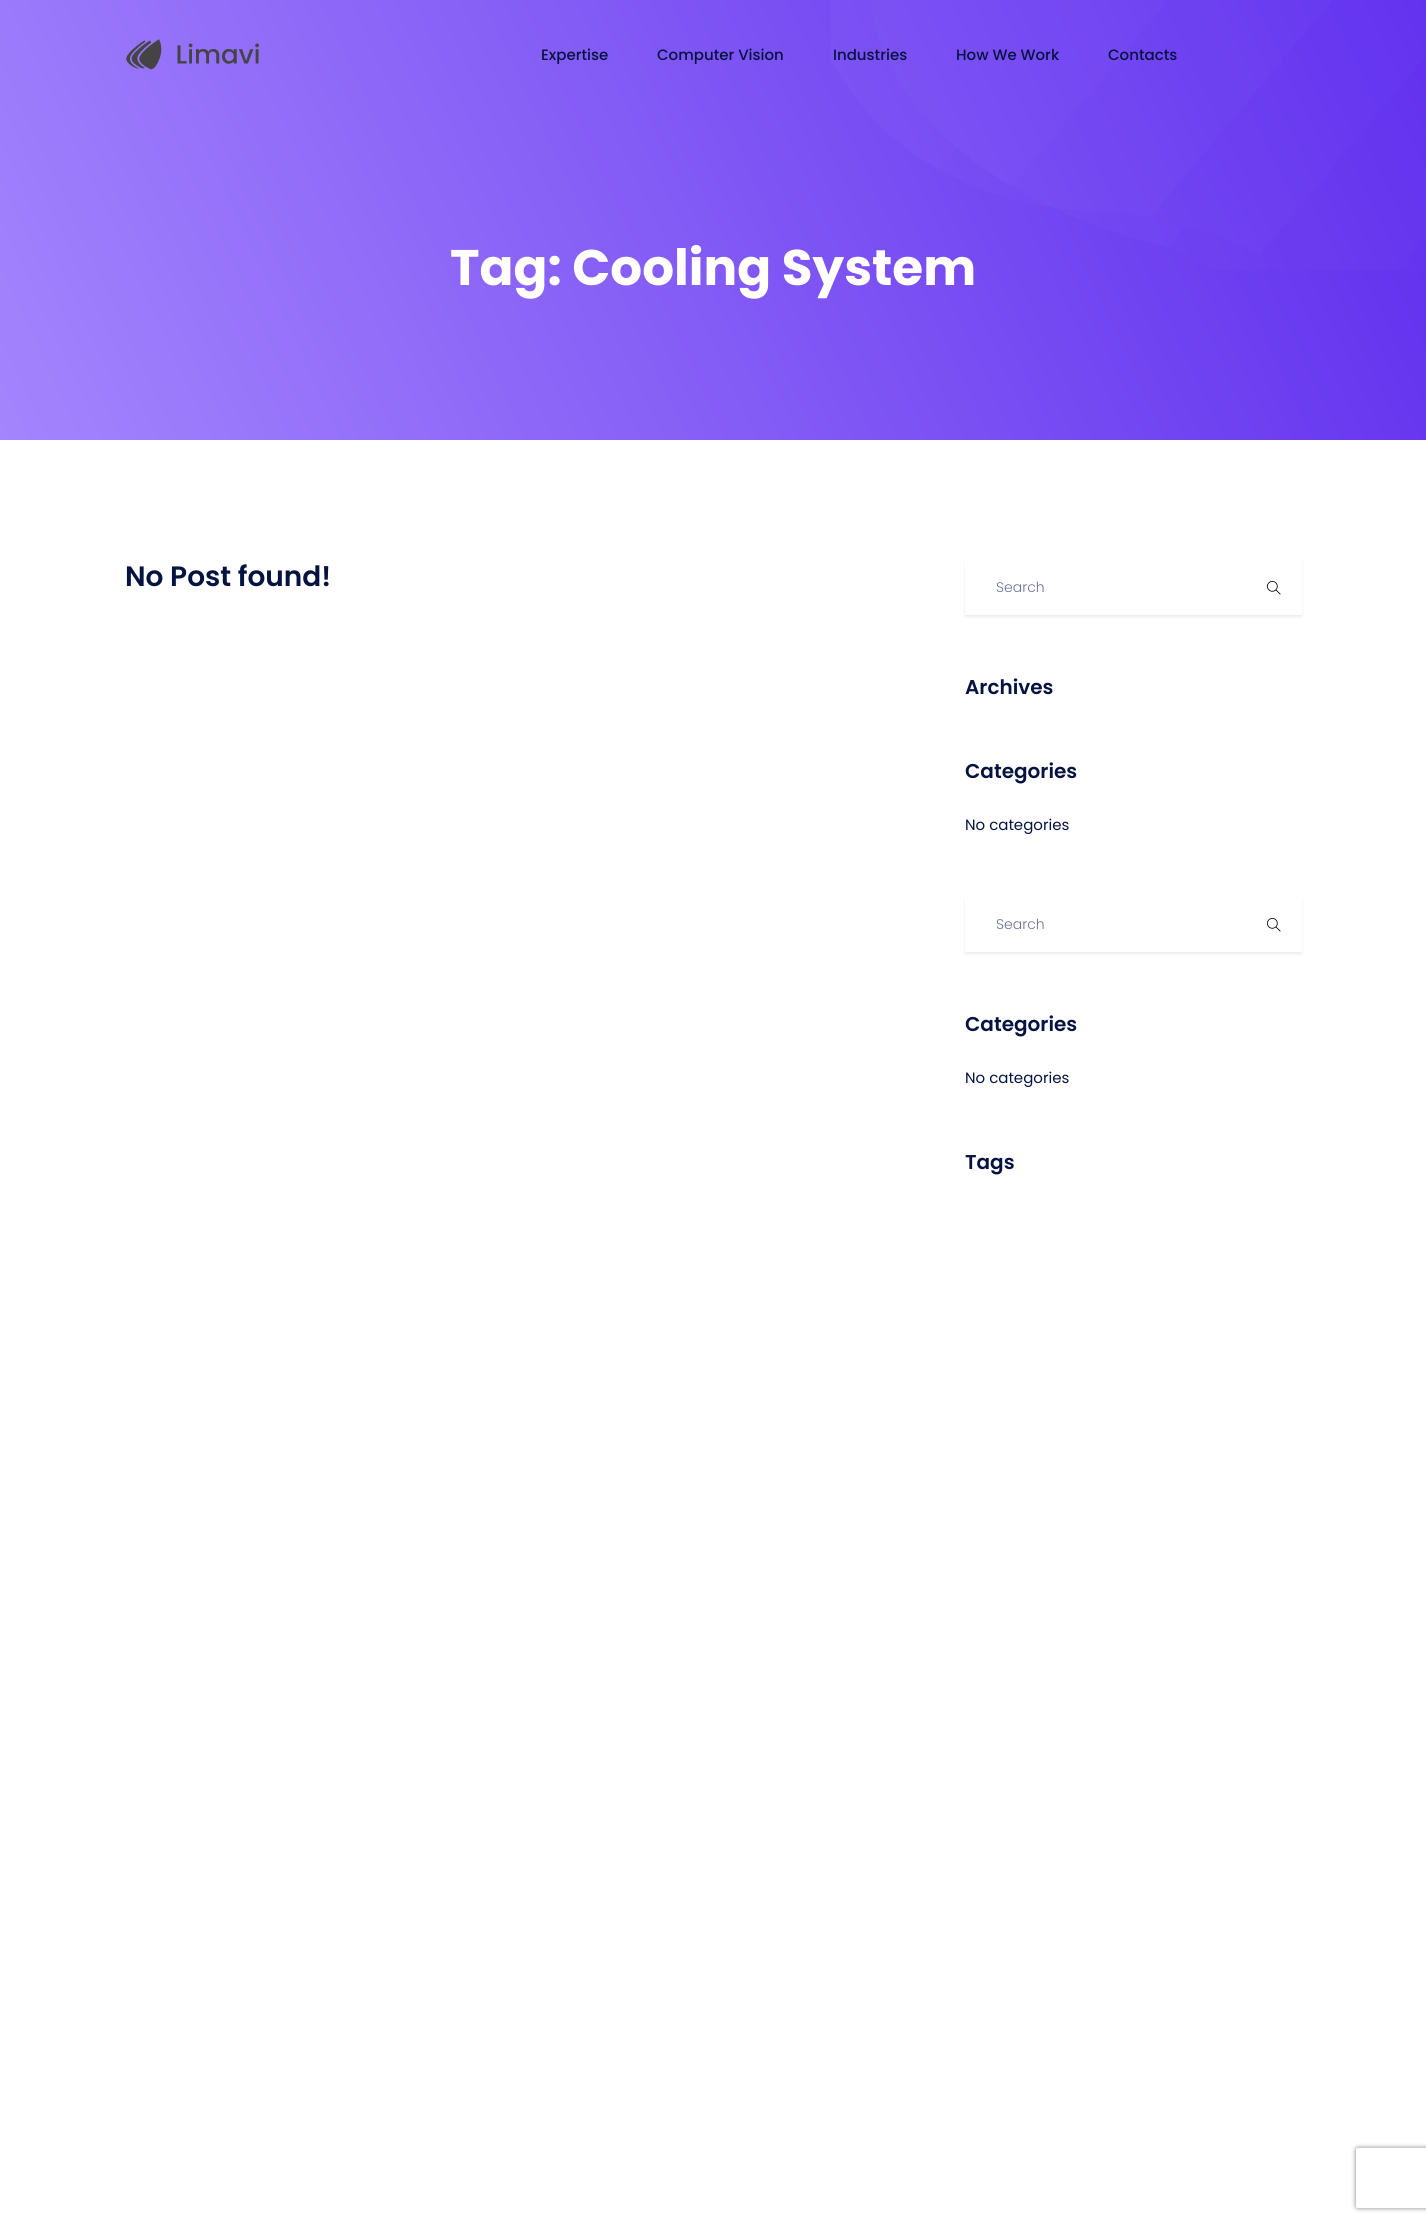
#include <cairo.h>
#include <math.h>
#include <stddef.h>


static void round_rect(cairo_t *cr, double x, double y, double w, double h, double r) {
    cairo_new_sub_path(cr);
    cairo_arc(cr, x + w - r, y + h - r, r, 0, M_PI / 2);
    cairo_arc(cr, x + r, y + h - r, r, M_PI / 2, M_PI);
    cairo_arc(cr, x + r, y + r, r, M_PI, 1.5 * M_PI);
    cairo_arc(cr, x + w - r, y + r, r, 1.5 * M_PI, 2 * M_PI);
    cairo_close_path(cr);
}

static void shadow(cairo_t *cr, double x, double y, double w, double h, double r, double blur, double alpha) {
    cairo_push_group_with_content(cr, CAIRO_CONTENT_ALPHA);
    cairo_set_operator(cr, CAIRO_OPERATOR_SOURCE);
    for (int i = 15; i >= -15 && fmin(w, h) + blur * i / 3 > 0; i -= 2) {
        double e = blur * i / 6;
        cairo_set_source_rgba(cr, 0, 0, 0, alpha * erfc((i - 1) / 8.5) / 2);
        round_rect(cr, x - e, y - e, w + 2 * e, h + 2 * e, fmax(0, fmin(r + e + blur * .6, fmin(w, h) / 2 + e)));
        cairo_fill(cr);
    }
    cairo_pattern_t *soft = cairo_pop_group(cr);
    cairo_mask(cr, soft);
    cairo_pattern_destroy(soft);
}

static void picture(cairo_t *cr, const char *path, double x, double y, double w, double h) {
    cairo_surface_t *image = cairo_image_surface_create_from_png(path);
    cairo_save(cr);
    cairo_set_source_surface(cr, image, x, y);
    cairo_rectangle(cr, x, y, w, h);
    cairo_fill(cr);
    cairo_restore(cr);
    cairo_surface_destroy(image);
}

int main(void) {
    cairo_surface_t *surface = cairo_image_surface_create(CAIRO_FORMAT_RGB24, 1426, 2222);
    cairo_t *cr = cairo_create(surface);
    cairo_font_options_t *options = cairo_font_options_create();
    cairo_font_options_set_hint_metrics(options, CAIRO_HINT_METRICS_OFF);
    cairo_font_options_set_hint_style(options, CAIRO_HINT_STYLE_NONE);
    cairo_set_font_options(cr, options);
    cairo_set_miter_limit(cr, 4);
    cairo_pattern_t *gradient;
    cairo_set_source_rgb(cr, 1, 1, 1);
    cairo_paint(cr);
    gradient = cairo_pattern_create_linear(1383, -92, 43, 532);
    cairo_pattern_add_color_stop_rgba(gradient, 0, 0.369, 0.173, 0.929, 1);
    cairo_pattern_add_color_stop_rgba(gradient, 1, 0.643, 0.522, 0.992, 1);
    cairo_set_source(cr, gradient);
    cairo_pattern_destroy(gradient);
    cairo_rectangle(cr, 0, 0, 1426, 440);
    cairo_fill(cr);
    picture(cr, "img1.png", 126, 39, 133, 31);
    cairo_select_font_face(cr, "Poppins Medium", CAIRO_FONT_SLANT_NORMAL, CAIRO_FONT_WEIGHT_NORMAL);
    cairo_set_font_size(cr, 15);
    cairo_set_source_rgb(cr, 0.02, 0.078, 0.255);
    cairo_move_to(cr, 541, 60);
    cairo_show_text(cr, "Expertise");
    cairo_move_to(cr, 657, 60);
    cairo_show_text(cr, "Computer Vision");
    picture(cr, "img2.png", 831, 0, 595, 270);
    cairo_move_to(cr, 833, 60);
    cairo_show_text(cr, "Industries");
    cairo_move_to(cr, 956, 60);
    cairo_show_text(cr, "How We Work");
    cairo_move_to(cr, 1108, 60);
    cairo_show_text(cr, "Contacts");
    cairo_select_font_face(cr, "Poppins", CAIRO_FONT_SLANT_NORMAL, CAIRO_FONT_WEIGHT_BOLD);
    cairo_set_font_size(cr, 50);
    cairo_set_source_rgb(cr, 1, 1, 1);
    cairo_move_to(cr, 450, 285);
    cairo_show_text(cr, "Tag: Cooling System");
    cairo_select_font_face(cr, "Poppins SemiBold", CAIRO_FONT_SLANT_NORMAL, CAIRO_FONT_WEIGHT_NORMAL);
    cairo_set_font_size(cr, 28);
    cairo_set_source_rgb(cr, 0.02, 0.078, 0.255);
    cairo_move_to(cr, 125, 586);
    cairo_show_text(cr, "No Post found!");
    cairo_save(cr);
    cairo_set_fill_rule(cr, CAIRO_FILL_RULE_EVEN_ODD);
    cairo_new_path(cr);
    cairo_move_to(cr, 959, 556);
    cairo_line_to(cr, 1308, 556);
    cairo_line_to(cr, 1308, 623);
    cairo_line_to(cr, 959, 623);
    cairo_close_path(cr);
    cairo_move_to(cr, 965, 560);
    cairo_line_to(cr, 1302, 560);
    cairo_line_to(cr, 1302, 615);
    cairo_line_to(cr, 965, 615);
    cairo_close_path(cr);
    cairo_clip(cr);
    cairo_set_source_rgb(cr, 0.047, 0, 0.18);
    shadow(cr, 965, 562, 337, 55, 0, 1.5, 0.08);
    cairo_restore(cr);
    cairo_select_font_face(cr, "Poppins Light", CAIRO_FONT_SLANT_NORMAL, CAIRO_FONT_WEIGHT_NORMAL);
    cairo_set_font_size(cr, 14);
    cairo_set_source_rgb(cr, 0.404, 0.447, 0.58);
    cairo_move_to(cr, 996, 592);
    cairo_show_text(cr, "Search");
    picture(cr, "img3.png", 1267, 581, 14, 14);
    cairo_select_font_face(cr, "Poppins SemiBold", CAIRO_FONT_SLANT_NORMAL, CAIRO_FONT_WEIGHT_NORMAL);
    cairo_set_font_size(cr, 20);
    cairo_set_source_rgb(cr, 0.02, 0.078, 0.255);
    cairo_move_to(cr, 965, 694);
    cairo_show_text(cr, "Archives");
    cairo_move_to(cr, 965, 778);
    cairo_show_text(cr, "Categories");
    cairo_select_font_face(cr, "Poppins", CAIRO_FONT_SLANT_NORMAL, CAIRO_FONT_WEIGHT_NORMAL);
    cairo_set_font_size(cr, 15);
    cairo_move_to(cr, 965, 830);
    cairo_show_text(cr, "No categories");
    cairo_save(cr);
    cairo_set_fill_rule(cr, CAIRO_FILL_RULE_EVEN_ODD);
    cairo_new_path(cr);
    cairo_move_to(cr, 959, 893);
    cairo_line_to(cr, 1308, 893);
    cairo_line_to(cr, 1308, 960);
    cairo_line_to(cr, 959, 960);
    cairo_close_path(cr);
    cairo_move_to(cr, 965, 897);
    cairo_line_to(cr, 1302, 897);
    cairo_line_to(cr, 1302, 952);
    cairo_line_to(cr, 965, 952);
    cairo_close_path(cr);
    cairo_clip(cr);
    cairo_set_source_rgb(cr, 0.047, 0, 0.18);
    shadow(cr, 965, 899, 337, 55, 0, 1.5, 0.08);
    cairo_restore(cr);
    cairo_select_font_face(cr, "Poppins Light", CAIRO_FONT_SLANT_NORMAL, CAIRO_FONT_WEIGHT_NORMAL);
    cairo_set_font_size(cr, 14);
    cairo_set_source_rgb(cr, 0.404, 0.447, 0.58);
    cairo_move_to(cr, 996, 929);
    cairo_show_text(cr, "Search");
    picture(cr, "img3.png", 1267, 918, 14, 14);
    cairo_select_font_face(cr, "Poppins SemiBold", CAIRO_FONT_SLANT_NORMAL, CAIRO_FONT_WEIGHT_NORMAL);
    cairo_set_font_size(cr, 20);
    cairo_set_source_rgb(cr, 0.02, 0.078, 0.255);
    cairo_move_to(cr, 965, 1031);
    cairo_show_text(cr, "Categories");
    cairo_select_font_face(cr, "Poppins", CAIRO_FONT_SLANT_NORMAL, CAIRO_FONT_WEIGHT_NORMAL);
    cairo_set_font_size(cr, 15);
    cairo_move_to(cr, 965, 1083);
    cairo_show_text(cr, "No categories");
    cairo_select_font_face(cr, "Poppins SemiBold", CAIRO_FONT_SLANT_NORMAL, CAIRO_FONT_WEIGHT_NORMAL);
    cairo_set_font_size(cr, 20);
    cairo_move_to(cr, 965, 1169);
    cairo_show_text(cr, "Tags");
    cairo_save(cr);
    cairo_set_fill_rule(cr, CAIRO_FILL_RULE_EVEN_ODD);
    cairo_new_path(cr);
    cairo_move_to(cr, 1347, 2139);
    cairo_line_to(cr, 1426, 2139);
    cairo_line_to(cr, 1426, 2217);
    cairo_line_to(cr, 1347, 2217);
    cairo_close_path(cr);
    cairo_move_to(cr, 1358, 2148);
    cairo_line_to(cr, 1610, 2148);
    cairo_curve_to(cr, 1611, 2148, 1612, 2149, 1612, 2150);
    cairo_line_to(cr, 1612, 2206);
    cairo_curve_to(cr, 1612, 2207, 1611, 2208, 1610, 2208);
    cairo_line_to(cr, 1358, 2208);
    cairo_curve_to(cr, 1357, 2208, 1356, 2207, 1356, 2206);
    cairo_line_to(cr, 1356, 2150);
    cairo_curve_to(cr, 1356, 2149, 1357, 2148, 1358, 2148);
    cairo_close_path(cr);
    cairo_clip(cr);
    cairo_set_source_rgb(cr, 0.502, 0.502, 0.502);
    shadow(cr, 1356, 2148, 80, 60, 2, 2.5, 1);
    cairo_restore(cr);
    cairo_surface_write_to_png(surface, "page.png");
    cairo_font_options_destroy(options);
    cairo_destroy(cr);
    cairo_surface_destroy(surface);
    return 0;
}
